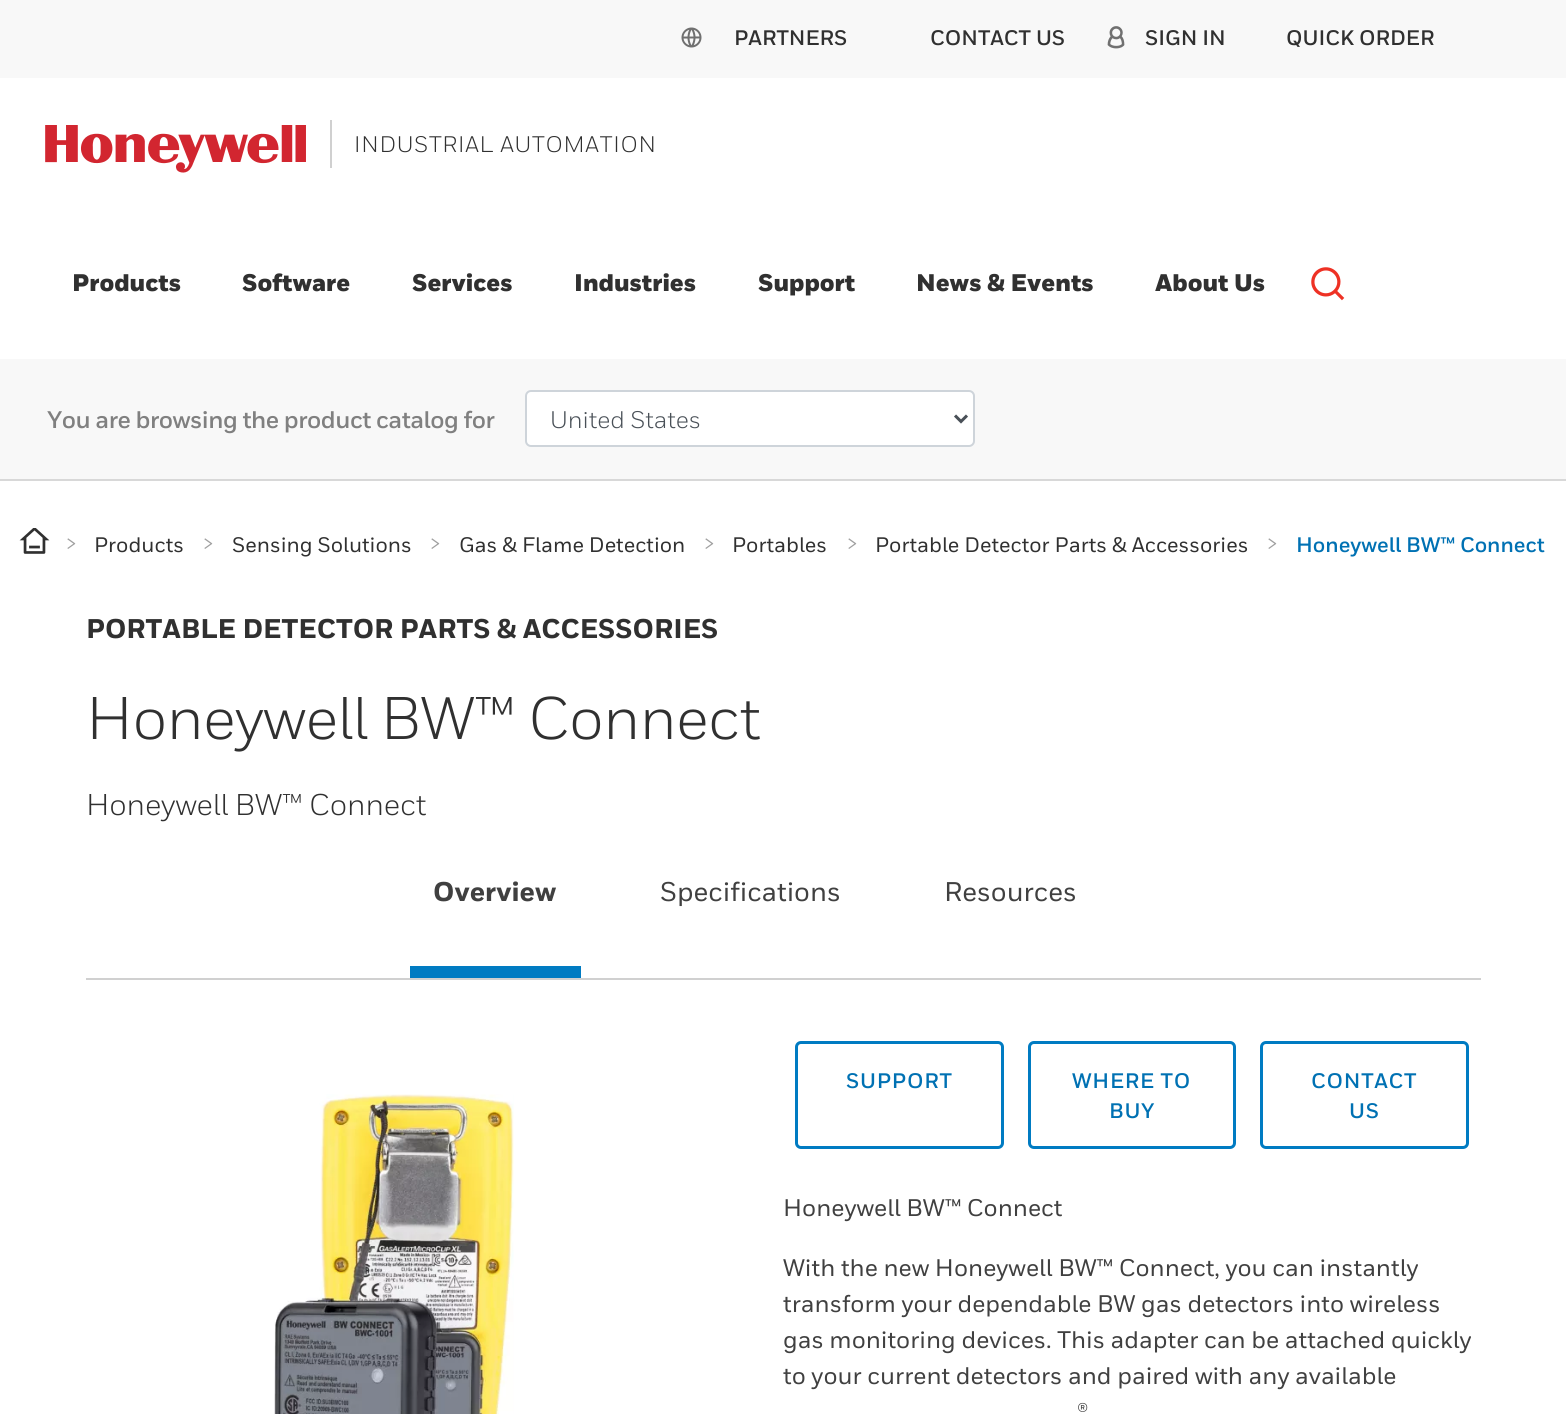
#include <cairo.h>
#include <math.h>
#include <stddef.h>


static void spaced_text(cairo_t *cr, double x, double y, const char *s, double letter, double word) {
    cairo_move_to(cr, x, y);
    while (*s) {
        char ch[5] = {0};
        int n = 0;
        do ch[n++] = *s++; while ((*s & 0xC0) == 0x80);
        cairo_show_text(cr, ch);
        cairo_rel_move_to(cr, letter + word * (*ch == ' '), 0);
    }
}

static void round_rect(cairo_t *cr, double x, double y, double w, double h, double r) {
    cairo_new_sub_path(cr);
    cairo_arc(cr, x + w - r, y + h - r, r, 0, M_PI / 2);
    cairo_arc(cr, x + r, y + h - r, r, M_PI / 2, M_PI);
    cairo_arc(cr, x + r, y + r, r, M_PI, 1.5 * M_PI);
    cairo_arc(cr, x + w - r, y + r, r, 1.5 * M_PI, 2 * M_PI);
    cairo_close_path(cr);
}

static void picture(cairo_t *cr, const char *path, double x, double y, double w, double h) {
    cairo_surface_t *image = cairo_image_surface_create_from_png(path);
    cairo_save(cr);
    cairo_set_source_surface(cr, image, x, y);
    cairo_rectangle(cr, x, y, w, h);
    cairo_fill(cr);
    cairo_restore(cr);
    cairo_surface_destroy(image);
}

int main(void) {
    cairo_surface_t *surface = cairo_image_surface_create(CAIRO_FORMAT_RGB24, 1566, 1414);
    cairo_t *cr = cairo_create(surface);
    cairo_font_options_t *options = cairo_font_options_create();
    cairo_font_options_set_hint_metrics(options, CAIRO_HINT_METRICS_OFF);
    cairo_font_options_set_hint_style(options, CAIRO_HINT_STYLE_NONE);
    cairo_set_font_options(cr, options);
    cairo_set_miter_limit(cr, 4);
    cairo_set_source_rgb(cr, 1, 1, 1);
    cairo_paint(cr);
    cairo_set_source_rgb(cr, 0.969, 0.969, 0.969);
    cairo_rectangle(cr, 0, 0, 1566, 78);
    cairo_fill(cr);
    picture(cr, "img1.png", 681, 27, 21, 21);
    cairo_select_font_face(cr, "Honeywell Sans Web", CAIRO_FONT_SLANT_NORMAL, CAIRO_FONT_WEIGHT_BOLD);
    cairo_set_font_size(cr, 21);
    cairo_set_source_rgb(cr, 0.188, 0.188, 0.188);
    cairo_move_to(cr, 734, 45);
    cairo_show_text(cr, "PARTNERS");
    cairo_move_to(cr, 930, 45);
    cairo_show_text(cr, "CONTACT US");
    picture(cr, "img2.png", 1107, 26, 18, 23);
    cairo_move_to(cr, 1145, 45);
    cairo_show_text(cr, "SIGN IN");
    cairo_move_to(cr, 1286, 45);
    cairo_show_text(cr, "QUICK ORDER");
    cairo_set_source_rgb(cr, 0.847, 0.847, 0.847);
    cairo_rectangle(cr, 0, 479, 1566, 2);
    cairo_fill(cr);
    picture(cr, "img3.png", 45, 125, 261, 48);
    cairo_set_source_rgb(cr, 0.816, 0.816, 0.816);
    cairo_rectangle(cr, 330, 120, 2, 48);
    cairo_fill(cr);
    cairo_select_font_face(cr, "Honeywell Sans Web", CAIRO_FONT_SLANT_NORMAL, CAIRO_FONT_WEIGHT_NORMAL);
    cairo_set_font_size(cr, 22.5);
    cairo_set_source_rgb(cr, 0.188, 0.188, 0.188);
    spaced_text(cr, 354, 152, "INDUSTRIAL AUTOMATION", 0.75, 0);
    cairo_select_font_face(cr, "Honeywell Sans Web Black", CAIRO_FONT_SLANT_NORMAL, CAIRO_FONT_WEIGHT_NORMAL);
    cairo_set_font_size(cr, 24);
    cairo_move_to(cr, 72, 291);
    cairo_show_text(cr, "Products");
    cairo_move_to(cr, 242, 291);
    cairo_show_text(cr, "Software");
    cairo_move_to(cr, 412, 291);
    cairo_show_text(cr, "Services");
    cairo_move_to(cr, 574, 291);
    cairo_show_text(cr, "Industries");
    cairo_move_to(cr, 758, 291);
    cairo_show_text(cr, "Support");
    cairo_move_to(cr, 916, 291);
    cairo_show_text(cr, "News & Events");
    cairo_move_to(cr, 1155, 291);
    cairo_show_text(cr, "About Us");
    picture(cr, "img4.png", 1311, 267, 34, 34);
    cairo_set_source_rgb(cr, 0.969, 0.969, 0.969);
    cairo_rectangle(cr, 0, 359, 1566, 120);
    cairo_fill(cr);
    cairo_select_font_face(cr, "Honeywell Sans Web", CAIRO_FONT_SLANT_NORMAL, CAIRO_FONT_WEIGHT_BOLD);
    cairo_set_source_rgb(cr, 0.502, 0.502, 0.502);
    spaced_text(cr, 47, 428, "You are browsing the product catalog for", -0.5, 0);
    cairo_set_source_rgb(cr, 1, 1, 1);
    round_rect(cr, 526, 391, 448, 55, 5);
    cairo_fill_preserve(cr);
    cairo_set_source_rgb(cr, 0.808, 0.831, 0.855);
    cairo_stroke(cr);
    cairo_new_path(cr);
    cairo_move_to(cr, 955, 415.5);
    cairo_line_to(cr, 961, 421.5);
    cairo_line_to(cr, 967, 415.5);
    cairo_set_source_rgb(cr, 0.286, 0.314, 0.341);
    cairo_set_line_width(cr, 3);
    cairo_stroke(cr);
    cairo_select_font_face(cr, "Honeywell Sans Web", CAIRO_FONT_SLANT_NORMAL, CAIRO_FONT_WEIGHT_NORMAL);
    cairo_move_to(cr, 550, 428);
    cairo_show_text(cr, "United States");
    picture(cr, "img5.png", 19, 528, 31, 26);
    cairo_set_font_size(cr, 27);
    cairo_set_source_rgb(cr, 0.627, 0.627, 0.627);
    cairo_move_to(cr, 65, 552);
    cairo_show_text(cr, ">");
    cairo_select_font_face(cr, "Honeywell Sans Web Medium", CAIRO_FONT_SLANT_NORMAL, CAIRO_FONT_WEIGHT_NORMAL);
    cairo_set_font_size(cr, 21);
    cairo_set_source_rgb(cr, 0.188, 0.188, 0.188);
    cairo_move_to(cr, 94, 552);
    cairo_show_text(cr, "Products");
    cairo_select_font_face(cr, "Honeywell Sans Web", CAIRO_FONT_SLANT_NORMAL, CAIRO_FONT_WEIGHT_NORMAL);
    cairo_set_font_size(cr, 27);
    cairo_set_source_rgb(cr, 0.627, 0.627, 0.627);
    cairo_move_to(cr, 202, 552);
    cairo_show_text(cr, ">");
    cairo_select_font_face(cr, "Honeywell Sans Web Medium", CAIRO_FONT_SLANT_NORMAL, CAIRO_FONT_WEIGHT_NORMAL);
    cairo_set_font_size(cr, 21);
    cairo_set_source_rgb(cr, 0.188, 0.188, 0.188);
    cairo_move_to(cr, 232, 552);
    cairo_show_text(cr, "Sensing Solutions");
    cairo_select_font_face(cr, "Honeywell Sans Web", CAIRO_FONT_SLANT_NORMAL, CAIRO_FONT_WEIGHT_NORMAL);
    cairo_set_font_size(cr, 27);
    cairo_set_source_rgb(cr, 0.627, 0.627, 0.627);
    cairo_move_to(cr, 429, 552);
    cairo_show_text(cr, ">");
    cairo_select_font_face(cr, "Honeywell Sans Web Medium", CAIRO_FONT_SLANT_NORMAL, CAIRO_FONT_WEIGHT_NORMAL);
    cairo_set_font_size(cr, 21);
    cairo_set_source_rgb(cr, 0.188, 0.188, 0.188);
    cairo_move_to(cr, 459, 552);
    cairo_show_text(cr, "Gas & Flame Detection");
    cairo_select_font_face(cr, "Honeywell Sans Web", CAIRO_FONT_SLANT_NORMAL, CAIRO_FONT_WEIGHT_NORMAL);
    cairo_set_font_size(cr, 27);
    cairo_set_source_rgb(cr, 0.627, 0.627, 0.627);
    cairo_move_to(cr, 703, 552);
    cairo_show_text(cr, ">");
    cairo_select_font_face(cr, "Honeywell Sans Web Medium", CAIRO_FONT_SLANT_NORMAL, CAIRO_FONT_WEIGHT_NORMAL);
    cairo_set_font_size(cr, 21);
    cairo_set_source_rgb(cr, 0.188, 0.188, 0.188);
    cairo_move_to(cr, 732, 552);
    cairo_show_text(cr, "Portables");
    cairo_select_font_face(cr, "Honeywell Sans Web", CAIRO_FONT_SLANT_NORMAL, CAIRO_FONT_WEIGHT_NORMAL);
    cairo_set_font_size(cr, 27);
    cairo_set_source_rgb(cr, 0.627, 0.627, 0.627);
    cairo_move_to(cr, 846, 552);
    cairo_show_text(cr, ">");
    cairo_select_font_face(cr, "Honeywell Sans Web Medium", CAIRO_FONT_SLANT_NORMAL, CAIRO_FONT_WEIGHT_NORMAL);
    cairo_set_font_size(cr, 21);
    cairo_set_source_rgb(cr, 0.188, 0.188, 0.188);
    cairo_move_to(cr, 875, 552);
    cairo_show_text(cr, "Portable Detector Parts & Accessories");
    cairo_select_font_face(cr, "Honeywell Sans Web", CAIRO_FONT_SLANT_NORMAL, CAIRO_FONT_WEIGHT_NORMAL);
    cairo_set_font_size(cr, 27);
    cairo_set_source_rgb(cr, 0.627, 0.627, 0.627);
    cairo_move_to(cr, 1266, 552);
    cairo_show_text(cr, ">");
    cairo_select_font_face(cr, "Honeywell Sans Web", CAIRO_FONT_SLANT_NORMAL, CAIRO_FONT_WEIGHT_BOLD);
    cairo_set_font_size(cr, 21);
    cairo_set_source_rgb(cr, 0, 0.443, 0.702);
    cairo_move_to(cr, 1296, 552);
    cairo_show_text(cr, "Honeywell BW™ Connect");
    cairo_select_font_face(cr, "Honeywell Sans Web ExtraBold", CAIRO_FONT_SLANT_NORMAL, CAIRO_FONT_WEIGHT_NORMAL);
    cairo_set_font_size(cr, 27);
    cairo_set_source_rgb(cr, 0.188, 0.188, 0.188);
    cairo_move_to(cr, 86, 638);
    cairo_show_text(cr, "PORTABLE DETECTOR PARTS & ACCESSORIES");
    cairo_select_font_face(cr, "Honeywell Sans Web", CAIRO_FONT_SLANT_NORMAL, CAIRO_FONT_WEIGHT_NORMAL);
    cairo_set_font_size(cr, 60);
    spaced_text(cr, 86, 739, "Honeywell BW™ Connect", -0.6, 0);
    cairo_set_font_size(cr, 30);
    spaced_text(cr, 86, 815, "Honeywell BW™ Connect", -0.15, 0);
    cairo_set_source_rgb(cr, 0.816, 0.816, 0.816);
    cairo_rectangle(cr, 86, 978, 1395, 2);
    cairo_fill(cr);
    cairo_set_source_rgb(cr, 0, 0.482, 0.761);
    cairo_rectangle(cr, 410, 966, 171, 12);
    cairo_fill(cr);
    cairo_select_font_face(cr, "Honeywell Sans Web ExtraBold", CAIRO_FONT_SLANT_NORMAL, CAIRO_FONT_WEIGHT_NORMAL);
    cairo_set_font_size(cr, 27);
    cairo_set_source_rgb(cr, 0.251, 0.251, 0.251);
    cairo_move_to(cr, 433, 901);
    cairo_show_text(cr, "Overview");
    cairo_select_font_face(cr, "Honeywell Sans Web Medium", CAIRO_FONT_SLANT_NORMAL, CAIRO_FONT_WEIGHT_NORMAL);
    cairo_move_to(cr, 660, 901);
    cairo_show_text(cr, "Specifications");
    cairo_move_to(cr, 944, 901);
    cairo_show_text(cr, "Resources");
    picture(cr, "img6.png", 274, 1094, 240, 320);
    round_rect(cr, 796.5, 1042.5, 206, 105, 4.5);
    cairo_set_source_rgb(cr, 0, 0.482, 0.761);
    cairo_stroke(cr);
    cairo_select_font_face(cr, "Honeywell Sans Web", CAIRO_FONT_SLANT_NORMAL, CAIRO_FONT_WEIGHT_BOLD);
    cairo_set_font_size(cr, 21);
    cairo_set_source_rgb(cr, 0, 0.443, 0.702);
    spaced_text(cr, 846, 1088, "SUPPORT", 0.75, 0);
    round_rect(cr, 1029.5, 1042.5, 205, 105, 4.5);
    cairo_set_source_rgb(cr, 0, 0.482, 0.761);
    cairo_stroke(cr);
    cairo_set_source_rgb(cr, 0, 0.443, 0.702);
    spaced_text(cr, 1072, 1088, "WHERE TO", 0.75, 0);
    spaced_text(cr, 1109, 1118, "BUY", 0.75, 0);
    round_rect(cr, 1261.5, 1042.5, 206, 105, 4.5);
    cairo_set_source_rgb(cr, 0, 0.482, 0.761);
    cairo_stroke(cr);
    cairo_set_source_rgb(cr, 0, 0.443, 0.702);
    spaced_text(cr, 1311, 1088, "CONTACT", 0.75, 0);
    spaced_text(cr, 1349, 1118, "US", 0.75, 0);
    cairo_select_font_face(cr, "Honeywell Sans Web Medium", CAIRO_FONT_SLANT_NORMAL, CAIRO_FONT_WEIGHT_NORMAL);
    cairo_set_font_size(cr, 24);
    cairo_set_source_rgb(cr, 0.251, 0.251, 0.251);
    cairo_move_to(cr, 783, 1216);
    cairo_show_text(cr, "Honeywell BW™ Connect");
    cairo_move_to(cr, 783, 1276);
    cairo_show_text(cr, "With the new Honeywell BW™ Connect, you can instantly");
    cairo_move_to(cr, 783, 1312);
    cairo_show_text(cr, "transform your dependable BW gas detectors into wireless");
    cairo_move_to(cr, 783, 1348);
    cairo_show_text(cr, "gas monitoring devices. This adapter can be attached quickly");
    cairo_move_to(cr, 783, 1384);
    cairo_show_text(cr, "to your current detectors and paired with any available");
    cairo_move_to(cr, 1077, 1420);
    cairo_show_text(cr, "®");
    cairo_surface_write_to_png(surface, "page.png");
    cairo_font_options_destroy(options);
    cairo_destroy(cr);
    cairo_surface_destroy(surface);
    return 0;
}
